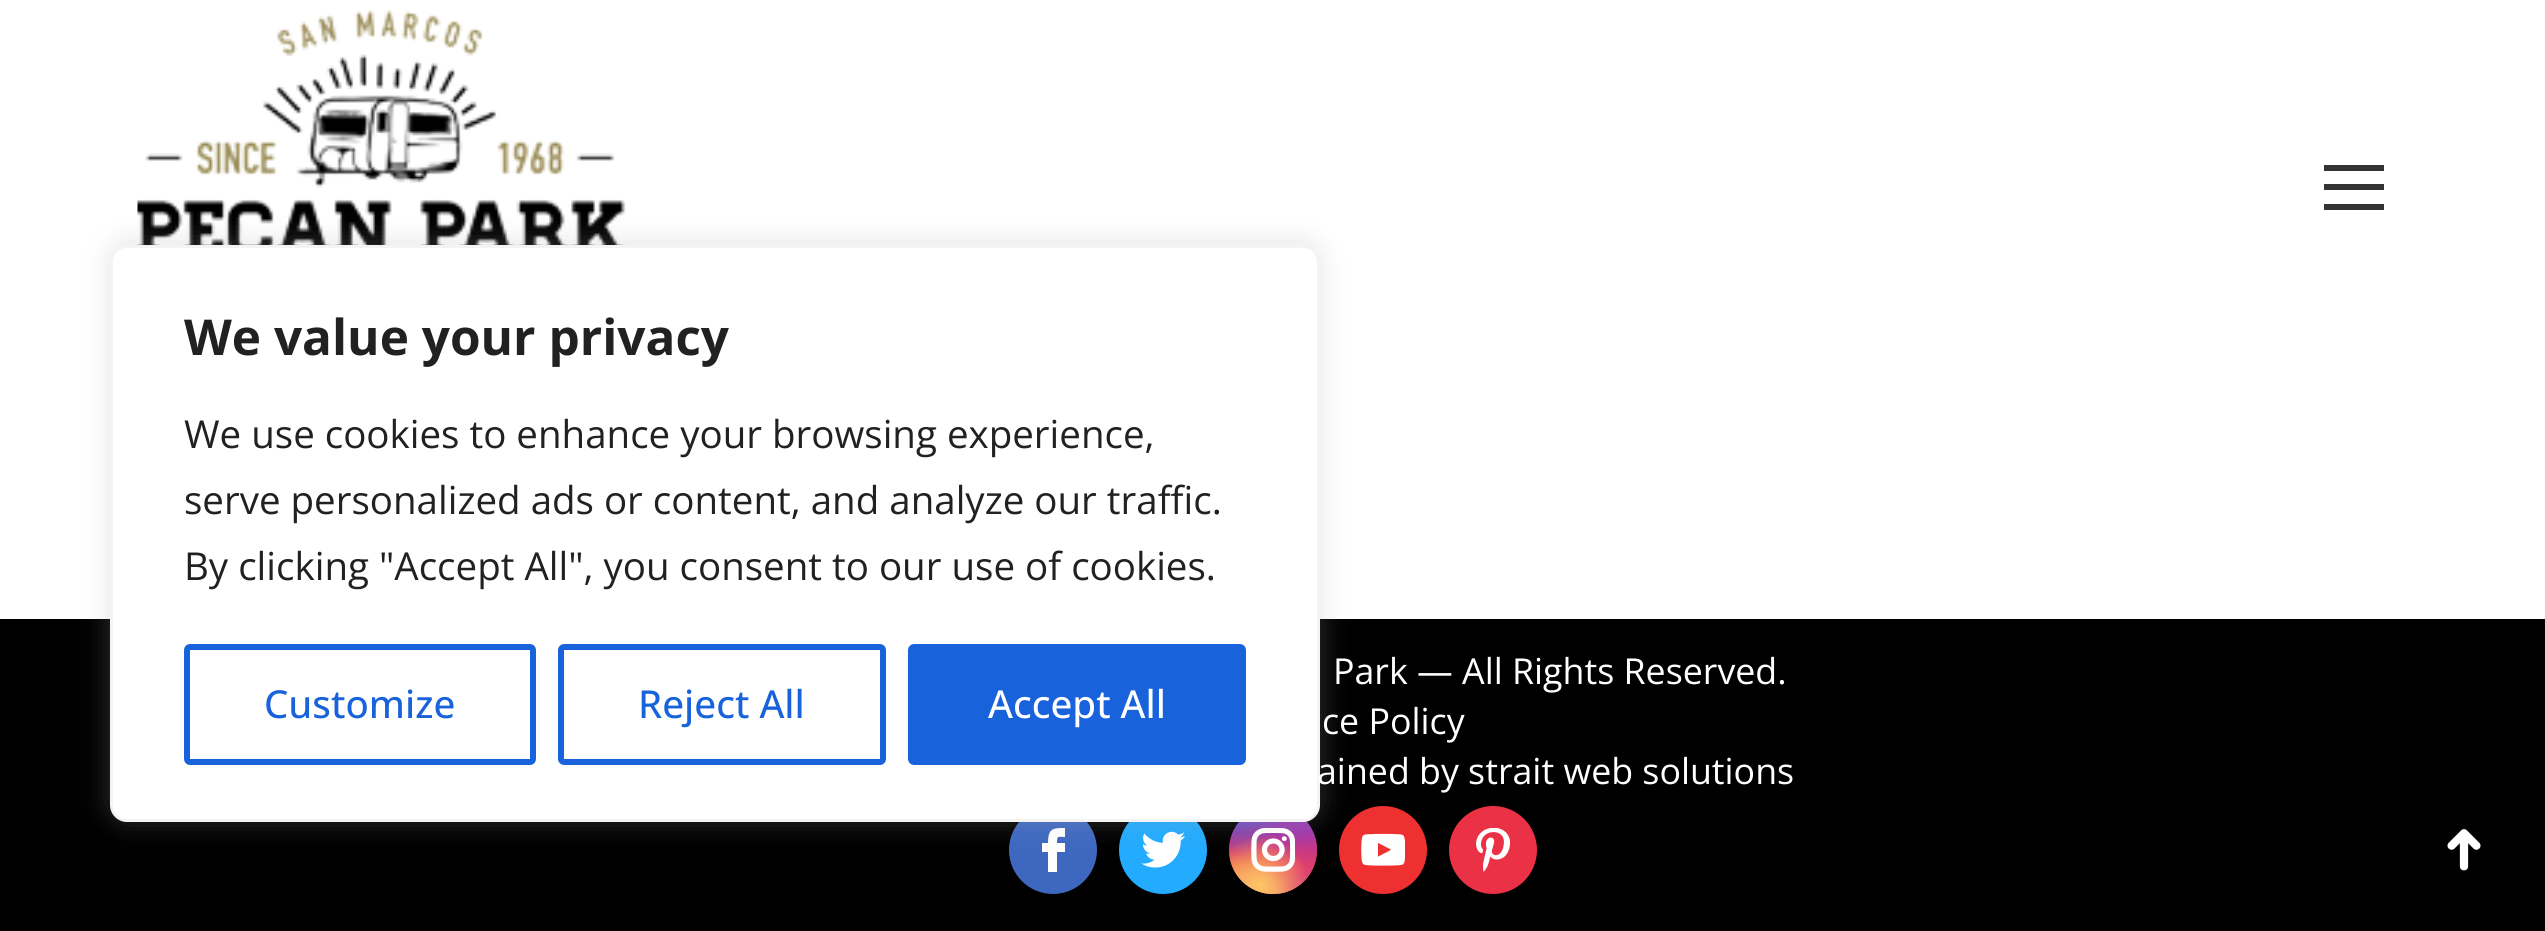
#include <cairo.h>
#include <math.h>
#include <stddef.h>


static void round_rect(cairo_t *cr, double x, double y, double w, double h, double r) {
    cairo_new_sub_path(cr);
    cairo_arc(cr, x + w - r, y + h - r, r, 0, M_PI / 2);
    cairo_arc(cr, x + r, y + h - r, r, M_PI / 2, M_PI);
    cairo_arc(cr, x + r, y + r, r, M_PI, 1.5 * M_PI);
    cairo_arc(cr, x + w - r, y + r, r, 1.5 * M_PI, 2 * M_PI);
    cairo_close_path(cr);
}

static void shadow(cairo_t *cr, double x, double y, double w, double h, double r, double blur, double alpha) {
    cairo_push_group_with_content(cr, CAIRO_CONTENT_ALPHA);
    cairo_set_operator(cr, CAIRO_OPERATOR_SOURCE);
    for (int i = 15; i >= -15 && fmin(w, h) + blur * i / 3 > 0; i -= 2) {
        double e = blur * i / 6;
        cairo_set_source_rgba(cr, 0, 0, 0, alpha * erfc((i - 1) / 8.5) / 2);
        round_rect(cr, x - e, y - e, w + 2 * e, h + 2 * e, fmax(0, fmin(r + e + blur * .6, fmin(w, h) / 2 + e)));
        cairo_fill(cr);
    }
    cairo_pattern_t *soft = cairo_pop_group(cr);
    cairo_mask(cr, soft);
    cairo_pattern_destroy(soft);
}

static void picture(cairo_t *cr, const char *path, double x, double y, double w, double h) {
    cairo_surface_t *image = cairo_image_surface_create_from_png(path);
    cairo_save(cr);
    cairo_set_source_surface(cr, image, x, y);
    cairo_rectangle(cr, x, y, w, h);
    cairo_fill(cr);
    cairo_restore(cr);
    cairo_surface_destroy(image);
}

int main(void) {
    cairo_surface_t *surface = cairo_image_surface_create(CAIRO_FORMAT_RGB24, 2545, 931);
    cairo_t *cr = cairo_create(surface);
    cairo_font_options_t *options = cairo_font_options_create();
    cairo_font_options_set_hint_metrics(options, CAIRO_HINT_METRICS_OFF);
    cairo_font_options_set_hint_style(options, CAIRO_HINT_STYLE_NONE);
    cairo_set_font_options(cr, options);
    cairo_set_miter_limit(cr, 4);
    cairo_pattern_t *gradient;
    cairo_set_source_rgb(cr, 1, 1, 1);
    cairo_paint(cr);
    picture(cr, "img1.png", 137, 10, 489, 235);
    cairo_set_source_rgb(cr, 0, 0, 0);
    cairo_rectangle(cr, 0, 619, 2545, 312);
    cairo_fill(cr);
    cairo_set_source_rgb(cr, 0.243, 0.408, 0.753);
    cairo_arc(cr, 1053, 850, 44, 0, 2 * M_PI);
    cairo_fill(cr);
    cairo_set_source_rgb(cr, 1, 1, 1);
    cairo_new_path(cr);
    cairo_move_to(cr, 1042, 852);
    cairo_line_to(cr, 1042, 843);
    cairo_line_to(cr, 1048, 843);
    cairo_curve_to(cr, 1048, 828, 1053, 828, 1065, 828);
    cairo_line_to(cr, 1065, 837);
    cairo_curve_to(cr, 1058, 837, 1057, 835, 1057, 843);
    cairo_line_to(cr, 1065, 843);
    cairo_line_to(cr, 1065, 852);
    cairo_line_to(cr, 1057, 852);
    cairo_line_to(cr, 1057, 872);
    cairo_line_to(cr, 1048, 872);
    cairo_line_to(cr, 1048, 852);
    cairo_close_path(cr);
    cairo_fill(cr);
    cairo_set_source_rgb(cr, 0.137, 0.671, 1);
    cairo_arc(cr, 1163, 850, 44, 0, 2 * M_PI);
    cairo_fill(cr);
    picture(cr, "img2.png", 1141, 831, 44, 37);
    gradient = cairo_pattern_create_linear(1273, 806, 1273, 894);
    cairo_pattern_add_color_stop_rgba(gradient, 0, 0.396, 0.349, 0.792, 1);
    cairo_pattern_add_color_stop_rgba(gradient, 0.3, 0.737, 0.192, 0.561, 1);
    cairo_pattern_add_color_stop_rgba(gradient, 0.5, 0.89, 0.247, 0.373, 1);
    cairo_pattern_add_color_stop_rgba(gradient, 0.7, 0.969, 0.463, 0.22, 1);
    cairo_pattern_add_color_stop_rgba(gradient, 1, 0.996, 0.776, 0.427, 1);
    cairo_set_source(cr, gradient);
    cairo_pattern_destroy(gradient);
    cairo_arc(cr, 1273, 850, 44, 0, 2 * M_PI);
    cairo_fill(cr);
    gradient = cairo_pattern_create_radial(1317, 894, 0, 1317, 894, 124);
    cairo_pattern_add_color_stop_rgba(gradient, 0, 0.851, 0.192, 0.478, 1);
    cairo_pattern_add_color_stop_rgba(gradient, 1, 0.851, 0.192, 0.478, 0);
    cairo_set_source(cr, gradient);
    cairo_pattern_destroy(gradient);
    cairo_arc(cr, 1273, 850, 44, 0, 2 * M_PI);
    cairo_fill(cr);
    gradient = cairo_pattern_create_radial(0, 0, 0, 0, 0, 1);
    cairo_pattern_set_matrix(gradient, &(cairo_matrix_t){1.0 / 75, 0, 0, 1.0 / 149, -1.0 * 1282 / 75, -1.0 * 788 / 149});
    cairo_pattern_add_color_stop_rgba(gradient, 0, 0.537, 0.239, 0.761, 1);
    cairo_pattern_add_color_stop_rgba(gradient, 0.5, 0.537, 0.239, 0.761, 0);
    cairo_set_source(cr, gradient);
    cairo_pattern_destroy(gradient);
    cairo_arc(cr, 1273, 850, 44, 0, 2 * M_PI);
    cairo_fill(cr);
    gradient = cairo_pattern_create_radial(1317, 806, 0, 1317, 806, 124);
    cairo_pattern_add_color_stop_rgba(gradient, 0, 0.537, 0.239, 0.761, 1);
    cairo_pattern_add_color_stop_rgba(gradient, 0.5, 0.537, 0.239, 0.761, 0);
    cairo_set_source(cr, gradient);
    cairo_pattern_destroy(gradient);
    cairo_arc(cr, 1273, 850, 44, 0, 2 * M_PI);
    cairo_fill(cr);
    gradient = cairo_pattern_create_radial(0, 0, 0, 0, 0, 1);
    cairo_pattern_set_matrix(gradient, &(cairo_matrix_t){1.0 / 100, 0, 0, 1.0 / 187, -1.0 * 1247 / 100, -1.0 * 762 / 187});
    cairo_pattern_add_color_stop_rgba(gradient, 0, 0.322, 0.345, 0.812, 1);
    cairo_pattern_add_color_stop_rgba(gradient, 0.5, 0.322, 0.345, 0.812, 0);
    cairo_set_source(cr, gradient);
    cairo_pattern_destroy(gradient);
    cairo_arc(cr, 1273, 850, 44, 0, 2 * M_PI);
    cairo_fill(cr);
    gradient = cairo_pattern_create_radial(0, 0, 0, 0, 0, 1);
    cairo_pattern_set_matrix(gradient, &(cairo_matrix_t){1.0 / 124, 0, 0, 1.0 / 156, -1.0 * 1229 / 124, -1.0 * 784 / 156});
    cairo_pattern_add_color_stop_rgba(gradient, 0, 0.322, 0.345, 0.812, 1);
    cairo_pattern_add_color_stop_rgba(gradient, 0.5, 0.322, 0.345, 0.812, 0);
    cairo_set_source(cr, gradient);
    cairo_pattern_destroy(gradient);
    cairo_arc(cr, 1273, 850, 44, 0, 2 * M_PI);
    cairo_fill(cr);
    gradient = cairo_pattern_create_radial(1229, 929, 0, 1229, 929, 151);
    cairo_pattern_add_color_stop_rgba(gradient, 0, 0.996, 0.773, 0.392, 1);
    cairo_pattern_add_color_stop_rgba(gradient, 0.5, 0.996, 0.773, 0.392, 0);
    cairo_set_source(cr, gradient);
    cairo_pattern_destroy(gradient);
    cairo_arc(cr, 1273, 850, 44, 0, 2 * M_PI);
    cairo_fill(cr);
    gradient = cairo_pattern_create_radial(1260, 885, 0, 1260, 885, 98);
    cairo_pattern_add_color_stop_rgba(gradient, 0, 0.996, 0.773, 0.392, 1);
    cairo_pattern_add_color_stop_rgba(gradient, 0.5, 0.996, 0.773, 0.392, 0);
    cairo_set_source(cr, gradient);
    cairo_pattern_destroy(gradient);
    cairo_arc(cr, 1273, 850, 44, 0, 2 * M_PI);
    cairo_fill(cr);
    picture(cr, "img3.png", 1251, 828, 44, 44);
    cairo_set_source_rgb(cr, 0.933, 0.192, 0.188);
    cairo_arc(cr, 1383, 850, 44, 0, 2 * M_PI);
    cairo_fill(cr);
    picture(cr, "img4.png", 1361, 833, 44, 33);
    cairo_set_source_rgb(cr, 0.675, 0.671, 0.671);
    shadow(cr, 110, 242, 1210, 578, 17, 14, 0.3);
    cairo_set_source_rgb(cr, 1, 1, 1);
    round_rect(cr, 111.5, 246.5, 1207, 574, 15.5);
    cairo_fill_preserve(cr);
    cairo_set_source_rgb(cr, 0.957, 0.957, 0.957);
    cairo_set_line_width(cr, 3);
    cairo_stroke(cr);
    cairo_select_font_face(cr, "Open Sans", CAIRO_FONT_SLANT_NORMAL, CAIRO_FONT_WEIGHT_BOLD);
    cairo_set_font_size(cr, 49.5);
    cairo_set_source_rgb(cr, 0.129, 0.129, 0.129);
    cairo_move_to(cr, 184, 355);
    cairo_show_text(cr, "We value your privacy");
    cairo_select_font_face(cr, "Open Sans", CAIRO_FONT_SLANT_NORMAL, CAIRO_FONT_WEIGHT_NORMAL);
    cairo_set_font_size(cr, 38.5);
    cairo_move_to(cr, 184, 448);
    cairo_show_text(cr, "We use cookies to enhance your browsing experience,");
    cairo_move_to(cr, 184, 514);
    cairo_show_text(cr, "serve personalized ads or content, and analyze our traffic.");
    cairo_move_to(cr, 184, 580);
    cairo_show_text(cr, "By clicking \"Accept All\", you consent to our use of cookies.");
    round_rect(cr, 187, 647, 346, 115, 3);
    cairo_set_source_rgb(cr, 0.094, 0.388, 0.863);
    cairo_set_line_width(cr, 6);
    cairo_stroke(cr);
    cairo_select_font_face(cr, "Open Sans Medium", CAIRO_FONT_SLANT_NORMAL, CAIRO_FONT_WEIGHT_NORMAL);
    cairo_move_to(cr, 264, 718);
    cairo_show_text(cr, "Customize");
    round_rect(cr, 561, 647, 322, 115, 3);
    cairo_stroke(cr);
    cairo_move_to(cr, 638, 718);
    cairo_show_text(cr, "Reject All");
    round_rect(cr, 911, 647, 332, 115, 3);
    cairo_fill_preserve(cr);
    cairo_stroke(cr);
    cairo_set_source_rgb(cr, 1, 1, 1);
    cairo_move_to(cr, 988, 718);
    cairo_show_text(cr, "Accept All");
    cairo_set_source_rgb(cr, 0.2, 0.2, 0.2);
    cairo_rectangle(cr, 2324, 165, 60, 6);
    cairo_fill(cr);
    cairo_rectangle(cr, 2324, 184, 60, 6);
    cairo_fill(cr);
    cairo_rectangle(cr, 2324, 204, 60, 6);
    cairo_fill(cr);
    cairo_select_font_face(cr, "Open Sans", CAIRO_FONT_SLANT_NORMAL, CAIRO_FONT_WEIGHT_NORMAL);
    cairo_set_font_size(cr, 35.75);
    cairo_set_source_rgb(cr, 1, 1, 1);
    cairo_move_to(cr, 1333, 684);
    cairo_show_text(cr, "Park — All Rights Reserved.");
    cairo_move_to(cr, 1322, 734);
    cairo_show_text(cr, "ce Policy");
    cairo_move_to(cr, 1317, 784);
    cairo_show_text(cr, "ained by strait web solutions");
    cairo_set_source_rgb(cr, 0.918, 0.192, 0.271);
    cairo_new_path(cr);
    cairo_arc(cr, 1493, 850, 44, 0, 2 * M_PI);
    cairo_fill(cr);
    picture(cr, "img5.png", 1476, 828, 35, 44);
    picture(cr, "img6.png", 2447, 829, 34, 42);
    cairo_surface_write_to_png(surface, "page.png");
    cairo_font_options_destroy(options);
    cairo_destroy(cr);
    cairo_surface_destroy(surface);
    return 0;
}
